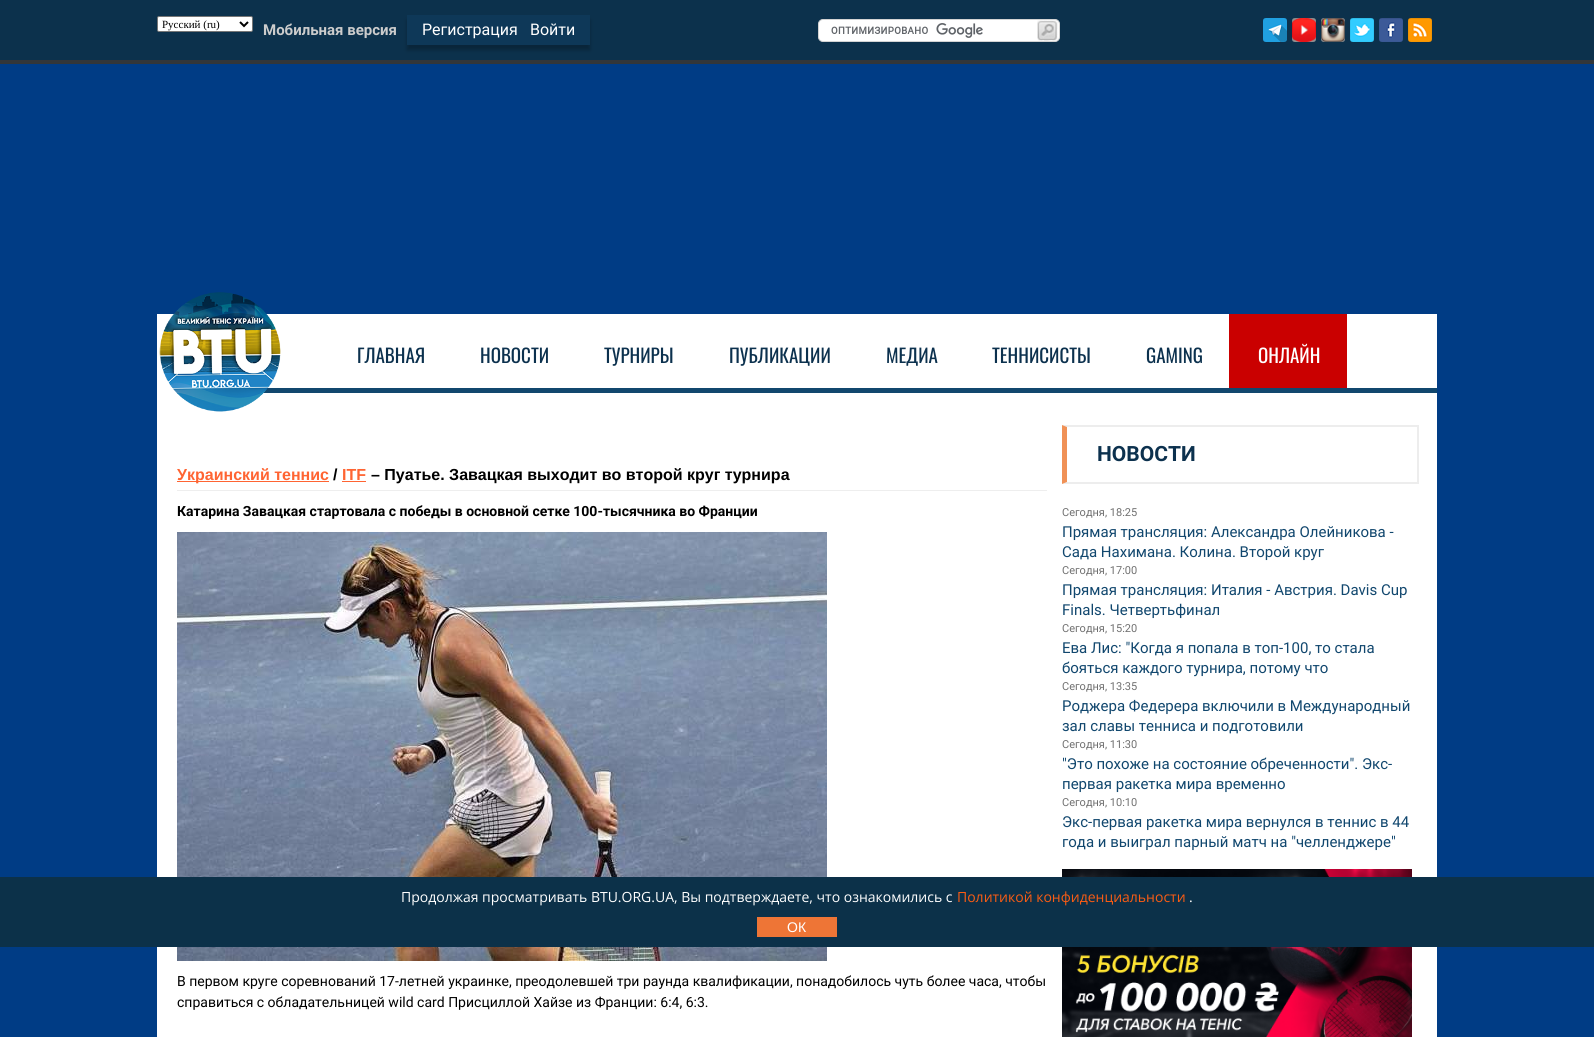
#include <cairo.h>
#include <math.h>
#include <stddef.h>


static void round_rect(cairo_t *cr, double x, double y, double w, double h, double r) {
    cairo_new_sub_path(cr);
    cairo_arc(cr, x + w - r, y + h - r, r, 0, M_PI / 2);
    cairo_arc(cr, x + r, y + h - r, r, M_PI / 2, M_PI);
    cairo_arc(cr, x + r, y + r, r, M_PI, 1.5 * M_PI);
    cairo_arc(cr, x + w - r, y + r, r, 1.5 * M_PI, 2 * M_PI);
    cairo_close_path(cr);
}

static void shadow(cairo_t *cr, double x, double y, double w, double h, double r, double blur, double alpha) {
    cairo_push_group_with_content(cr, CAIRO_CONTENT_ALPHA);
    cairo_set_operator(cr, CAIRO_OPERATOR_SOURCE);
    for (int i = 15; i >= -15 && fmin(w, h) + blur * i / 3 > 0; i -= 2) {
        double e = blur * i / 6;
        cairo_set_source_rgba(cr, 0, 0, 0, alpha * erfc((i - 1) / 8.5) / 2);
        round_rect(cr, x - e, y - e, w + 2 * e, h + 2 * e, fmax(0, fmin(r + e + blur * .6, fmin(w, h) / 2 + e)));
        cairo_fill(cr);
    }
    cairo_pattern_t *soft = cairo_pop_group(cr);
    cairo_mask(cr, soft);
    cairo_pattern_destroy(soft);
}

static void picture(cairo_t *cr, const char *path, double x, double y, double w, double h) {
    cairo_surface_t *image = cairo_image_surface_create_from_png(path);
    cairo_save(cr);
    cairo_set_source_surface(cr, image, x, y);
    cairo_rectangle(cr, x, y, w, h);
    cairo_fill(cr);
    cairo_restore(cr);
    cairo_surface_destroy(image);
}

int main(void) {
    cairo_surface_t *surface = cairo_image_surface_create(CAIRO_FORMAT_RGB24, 1594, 1037);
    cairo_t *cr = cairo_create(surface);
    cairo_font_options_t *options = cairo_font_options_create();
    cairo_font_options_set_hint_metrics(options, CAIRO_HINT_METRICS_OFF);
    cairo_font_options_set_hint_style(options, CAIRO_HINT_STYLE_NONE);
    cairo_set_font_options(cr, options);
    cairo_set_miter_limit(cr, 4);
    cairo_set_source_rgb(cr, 0, 0.235, 0.522);
    cairo_paint(cr);
    cairo_set_source_rgb(cr, 0.047, 0.192, 0.298);
    cairo_rectangle(cr, 0, 0, 1594, 60);
    cairo_fill(cr);
    cairo_set_source_rgb(cr, 0.196, 0.212, 0.224);
    cairo_rectangle(cr, 0, 60, 1594, 4);
    cairo_fill(cr);
    cairo_set_source_rgb(cr, 1, 1, 1);
    round_rect(cr, 157.5, 16.5, 95, 15, 1.5);
    cairo_fill_preserve(cr);
    cairo_set_source_rgb(cr, 0.463, 0.463, 0.463);
    cairo_set_line_width(cr, 1);
    cairo_stroke(cr);
    cairo_new_path(cr);
    cairo_move_to(cr, 240, 22);
    cairo_line_to(cr, 244, 26);
    cairo_line_to(cr, 248, 22);
    cairo_set_source_rgb(cr, 0, 0, 0);
    cairo_set_line_width(cr, 2);
    cairo_stroke(cr);
    cairo_select_font_face(cr, "Liberation Serif", CAIRO_FONT_SLANT_NORMAL, CAIRO_FONT_WEIGHT_NORMAL);
    cairo_set_font_size(cr, 11);
    cairo_move_to(cr, 162, 28);
    cairo_show_text(cr, "Русский (ru)");
    cairo_select_font_face(cr, "Roboto", CAIRO_FONT_SLANT_NORMAL, CAIRO_FONT_WEIGHT_BOLD);
    cairo_set_font_size(cr, 15);
    cairo_set_source_rgb(cr, 0.8, 0.8, 0.8);
    cairo_move_to(cr, 263, 35);
    cairo_show_text(cr, "Мобильная версия");
    cairo_set_source_rgb(cr, 0, 0, 0);
    shadow(cr, 407, 20, 183, 30, 0, 2, 0.25);
    cairo_set_source_rgb(cr, 0.055, 0.22, 0.345);
    cairo_rectangle(cr, 407, 15, 183, 30);
    cairo_fill(cr);
    cairo_select_font_face(cr, "Roboto", CAIRO_FONT_SLANT_NORMAL, CAIRO_FONT_WEIGHT_NORMAL);
    cairo_set_font_size(cr, 16);
    cairo_set_source_rgb(cr, 1, 1, 1);
    cairo_move_to(cr, 422, 35);
    cairo_show_text(cr, "Регистрация");
    cairo_move_to(cr, 530, 35);
    cairo_show_text(cr, "Войти");
    round_rect(cr, 818.5, 19.5, 241, 22, 4.5);
    cairo_fill_preserve(cr);
    cairo_set_source_rgb(cr, 0.827, 0.827, 0.827);
    cairo_set_line_width(cr, 1);
    cairo_stroke(cr);
    picture(cr, "img1.png", 831, 23, 152, 15);
    picture(cr, "img2.png", 1037, 20, 21, 21);
    picture(cr, "img3.png", 1263, 18, 24, 24);
    picture(cr, "img4.png", 1292, 18, 24, 24);
    picture(cr, "img5.png", 1292, 18, 24, 24);
    picture(cr, "img4.png", 1321, 18, 24, 24);
    picture(cr, "img6.png", 1321, 18, 24, 24);
    picture(cr, "img7.png", 1350, 18, 24, 24);
    picture(cr, "img8.png", 1379, 18, 24, 24);
    picture(cr, "img9.png", 1408, 18, 24, 24);
    cairo_set_source_rgb(cr, 1, 1, 1);
    cairo_rectangle(cr, 157, 314, 1280, 723);
    cairo_fill(cr);
    cairo_set_source_rgb(cr, 0.067, 0.278, 0.431);
    cairo_rectangle(cr, 263, 388, 1174, 5);
    cairo_fill(cr);
    picture(cr, "img10.png", 159, 292, 122, 120);
    cairo_select_font_face(cr, "Oswald", CAIRO_FONT_SLANT_NORMAL, CAIRO_FONT_WEIGHT_NORMAL);
    cairo_set_font_size(cr, 19);
    cairo_set_source_rgb(cr, 0.047, 0.192, 0.306);
    cairo_move_to(cr, 357, 363);
    cairo_show_text(cr, "ГЛАВНАЯ");
    cairo_move_to(cr, 480, 363);
    cairo_show_text(cr, "НОВОСТИ");
    cairo_move_to(cr, 604, 363);
    cairo_show_text(cr, "ТУРНИРЫ");
    cairo_move_to(cr, 729, 363);
    cairo_show_text(cr, "ПУБЛИКАЦИИ");
    cairo_move_to(cr, 886, 363);
    cairo_show_text(cr, "МЕДИА");
    cairo_move_to(cr, 992, 363);
    cairo_show_text(cr, "ТЕННИСИСТЫ");
    cairo_move_to(cr, 1146, 363);
    cairo_show_text(cr, "GAMING");
    cairo_set_source_rgb(cr, 0.792, 0, 0);
    cairo_rectangle(cr, 1229, 314, 118, 74);
    cairo_fill(cr);
    cairo_set_source_rgb(cr, 1, 1, 1);
    cairo_move_to(cr, 1258, 363);
    cairo_show_text(cr, "ОНЛАЙН");
    cairo_set_source_rgb(cr, 0.933, 0.933, 0.933);
    cairo_rectangle(cr, 177, 490, 870, 1);
    cairo_fill(cr);
    cairo_set_source_rgb(cr, 1, 0.392, 0.196);
    cairo_rectangle(cr, 177, 481, 152, 1);
    cairo_fill(cr);
    cairo_select_font_face(cr, "Liberation Sans", CAIRO_FONT_SLANT_NORMAL, CAIRO_FONT_WEIGHT_BOLD);
    cairo_set_font_size(cr, 16);
    cairo_move_to(cr, 177, 480);
    cairo_show_text(cr, "Украинский теннис");
    cairo_set_source_rgb(cr, 0, 0, 0);
    cairo_move_to(cr, 333, 480);
    cairo_show_text(cr, "/");
    cairo_set_source_rgb(cr, 1, 0.392, 0.196);
    cairo_move_to(cr, 342, 480);
    cairo_show_text(cr, "ITF");
    cairo_rectangle(cr, 342, 481, 24, 1);
    cairo_fill(cr);
    cairo_set_source_rgb(cr, 0, 0, 0);
    cairo_move_to(cr, 371, 480);
    cairo_show_text(cr, "– Пуатье. Завацкая выходит во второй круг турнира");
    cairo_select_font_face(cr, "Roboto", CAIRO_FONT_SLANT_NORMAL, CAIRO_FONT_WEIGHT_BOLD);
    cairo_set_font_size(cr, 14);
    cairo_move_to(cr, 177, 516);
    cairo_show_text(cr, "Катарина Завацкая стартовала с победы в основной сетке 100-тысячника во Франции");
    picture(cr, "img11.png", 177, 532, 650, 429);
    cairo_select_font_face(cr, "Roboto", CAIRO_FONT_SLANT_NORMAL, CAIRO_FONT_WEIGHT_NORMAL);
    cairo_move_to(cr, 177, 986);
    cairo_show_text(cr, "В первом круге соревнований 17-летней украинке, преодолевшей три раунда квалификации, понадобилось чуть более часа, чтобы");
    cairo_move_to(cr, 177, 1007);
    cairo_show_text(cr, "справиться с обладательницей wild card Присциллой Хайзе из Франции: 6:4, 6:3.");
    cairo_set_source_rgb(cr, 0.929, 0.929, 0.929);
    cairo_new_path(cr);
    cairo_move_to(cr, 1062, 425);
    cairo_line_to(cr, 1419, 425);
    cairo_line_to(cr, 1417, 427);
    cairo_line_to(cr, 1067, 427);
    cairo_close_path(cr);
    cairo_fill(cr);
    cairo_rectangle(cr, 1417, 425, 2, 59);
    cairo_fill(cr);
    cairo_new_path(cr);
    cairo_move_to(cr, 1419, 484);
    cairo_line_to(cr, 1062, 484);
    cairo_line_to(cr, 1067, 482);
    cairo_line_to(cr, 1417, 482);
    cairo_close_path(cr);
    cairo_fill(cr);
    cairo_set_source_rgb(cr, 0.941, 0.569, 0.337);
    cairo_new_path(cr);
    cairo_move_to(cr, 1062, 484);
    cairo_line_to(cr, 1062, 425);
    cairo_line_to(cr, 1067, 427);
    cairo_line_to(cr, 1067, 482);
    cairo_close_path(cr);
    cairo_fill(cr);
    cairo_select_font_face(cr, "Roboto", CAIRO_FONT_SLANT_NORMAL, CAIRO_FONT_WEIGHT_BOLD);
    cairo_set_font_size(cr, 21);
    cairo_set_source_rgb(cr, 0.047, 0.192, 0.306);
    cairo_move_to(cr, 1097, 461);
    cairo_show_text(cr, "НОВОСТИ");
    cairo_select_font_face(cr, "Roboto", CAIRO_FONT_SLANT_NORMAL, CAIRO_FONT_WEIGHT_NORMAL);
    cairo_set_font_size(cr, 11);
    cairo_set_source_rgb(cr, 0.439, 0.439, 0.439);
    cairo_move_to(cr, 1062, 516);
    cairo_show_text(cr, "Сегодня, 18:25");
    cairo_set_font_size(cr, 15);
    cairo_set_source_rgb(cr, 0.067, 0.278, 0.431);
    cairo_move_to(cr, 1062, 537);
    cairo_show_text(cr, "Прямая трансляция: Александра Олейникова -");
    cairo_move_to(cr, 1062, 557);
    cairo_show_text(cr, "Сада Нахимана. Колина. Второй круг");
    cairo_set_font_size(cr, 11);
    cairo_set_source_rgb(cr, 0.439, 0.439, 0.439);
    cairo_move_to(cr, 1062, 574);
    cairo_show_text(cr, "Сегодня, 17:00");
    cairo_set_font_size(cr, 15);
    cairo_set_source_rgb(cr, 0.067, 0.278, 0.431);
    cairo_move_to(cr, 1062, 595);
    cairo_show_text(cr, "Прямая трансляция: Италия - Австрия. Davis Cup");
    cairo_move_to(cr, 1062, 615);
    cairo_show_text(cr, "Finals. Четвертьфинал");
    cairo_set_font_size(cr, 11);
    cairo_set_source_rgb(cr, 0.439, 0.439, 0.439);
    cairo_move_to(cr, 1062, 632);
    cairo_show_text(cr, "Сегодня, 15:20");
    cairo_set_font_size(cr, 15);
    cairo_set_source_rgb(cr, 0.067, 0.278, 0.431);
    cairo_move_to(cr, 1062, 653);
    cairo_show_text(cr, "Ева Лис: \"Когда я попала в топ-100, то стала");
    cairo_move_to(cr, 1062, 673);
    cairo_show_text(cr, "бояться каждого турнира, потому что");
    cairo_set_font_size(cr, 11);
    cairo_set_source_rgb(cr, 0.439, 0.439, 0.439);
    cairo_move_to(cr, 1062, 690);
    cairo_show_text(cr, "Сегодня, 13:35");
    cairo_set_font_size(cr, 15);
    cairo_set_source_rgb(cr, 0.067, 0.278, 0.431);
    cairo_move_to(cr, 1062, 711);
    cairo_show_text(cr, "Роджера Федерера включили в Международный");
    cairo_move_to(cr, 1062, 731);
    cairo_show_text(cr, "зал славы тенниса и подготовили");
    cairo_set_font_size(cr, 11);
    cairo_set_source_rgb(cr, 0.439, 0.439, 0.439);
    cairo_move_to(cr, 1062, 748);
    cairo_show_text(cr, "Сегодня, 11:30");
    cairo_set_font_size(cr, 15);
    cairo_set_source_rgb(cr, 0.067, 0.278, 0.431);
    cairo_move_to(cr, 1062, 769);
    cairo_show_text(cr, "\"Это похоже на состояние обреченности\". Экс-");
    cairo_move_to(cr, 1062, 789);
    cairo_show_text(cr, "первая ракетка мира временно");
    cairo_set_font_size(cr, 11);
    cairo_set_source_rgb(cr, 0.439, 0.439, 0.439);
    cairo_move_to(cr, 1062, 806);
    cairo_show_text(cr, "Сегодня, 10:10");
    cairo_set_font_size(cr, 15);
    cairo_set_source_rgb(cr, 0.067, 0.278, 0.431);
    cairo_move_to(cr, 1062, 827);
    cairo_show_text(cr, "Экс-первая ракетка мира вернулся в теннис в 44");
    cairo_move_to(cr, 1062, 847);
    cairo_show_text(cr, "года и выиграл парный матч на \"челленджере\"");
    picture(cr, "img12.png", 1062, 869, 350, 168);
    cairo_set_source_rgb(cr, 0.047, 0.192, 0.286);
    cairo_rectangle(cr, 0, 877, 1594, 70);
    cairo_fill(cr);
    cairo_select_font_face(cr, "Open Sans", CAIRO_FONT_SLANT_NORMAL, CAIRO_FONT_WEIGHT_NORMAL);
    cairo_set_font_size(cr, 14);
    cairo_set_source_rgb(cr, 1, 1, 1);
    cairo_move_to(cr, 401, 902);
    cairo_show_text(cr, "Продолжая просматривать BTU.ORG.UA, Вы подтверждаете, что ознакомились с");
    cairo_set_source_rgb(cr, 0.984, 0.361, 0.078);
    cairo_move_to(cr, 957, 902);
    cairo_show_text(cr, "Политикой конфиденциальности");
    cairo_set_source_rgb(cr, 1, 1, 1);
    cairo_move_to(cr, 1189, 902);
    cairo_show_text(cr, ".");
    cairo_set_source_rgb(cr, 0.933, 0.459, 0.212);
    cairo_rectangle(cr, 757, 917, 80, 20);
    cairo_fill(cr);
    cairo_select_font_face(cr, "Liberation Sans", CAIRO_FONT_SLANT_NORMAL, CAIRO_FONT_WEIGHT_NORMAL);
    cairo_set_source_rgb(cr, 1, 1, 1);
    cairo_move_to(cr, 787, 932);
    cairo_show_text(cr, "ОК");
    cairo_surface_write_to_png(surface, "page.png");
    cairo_font_options_destroy(options);
    cairo_destroy(cr);
    cairo_surface_destroy(surface);
    return 0;
}
